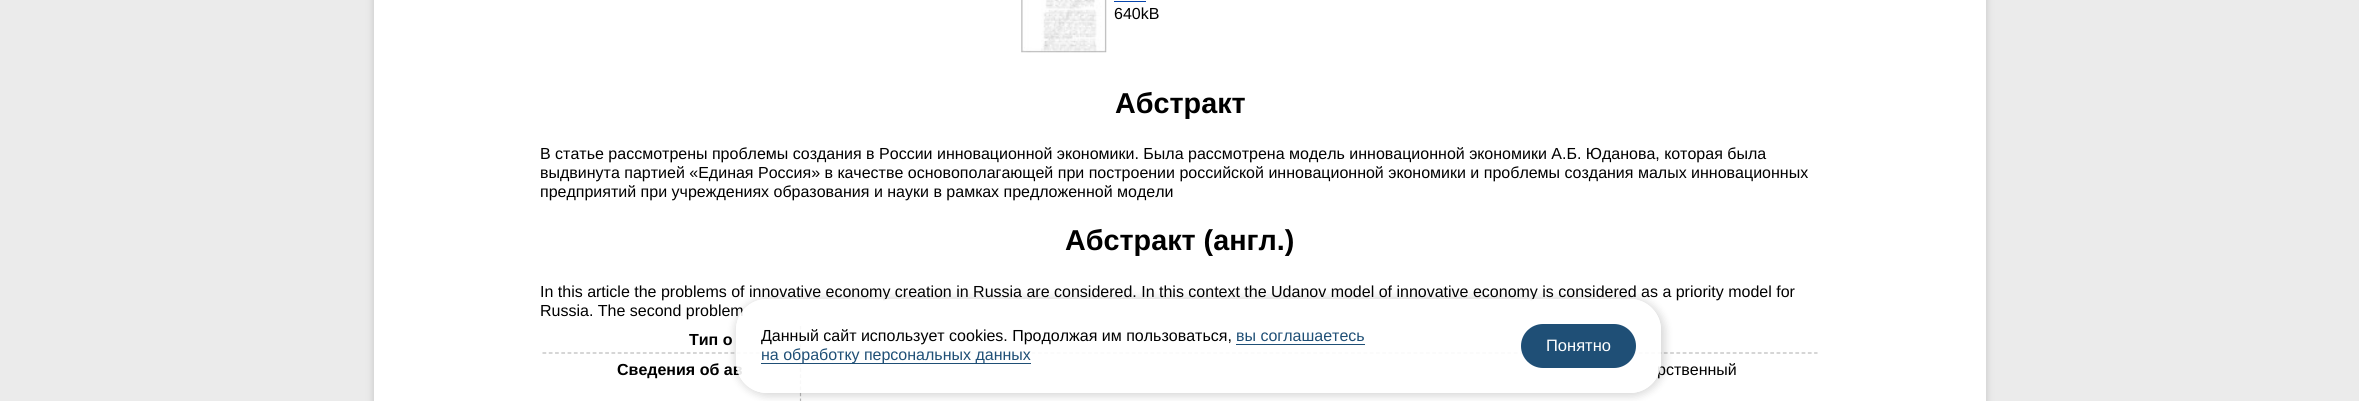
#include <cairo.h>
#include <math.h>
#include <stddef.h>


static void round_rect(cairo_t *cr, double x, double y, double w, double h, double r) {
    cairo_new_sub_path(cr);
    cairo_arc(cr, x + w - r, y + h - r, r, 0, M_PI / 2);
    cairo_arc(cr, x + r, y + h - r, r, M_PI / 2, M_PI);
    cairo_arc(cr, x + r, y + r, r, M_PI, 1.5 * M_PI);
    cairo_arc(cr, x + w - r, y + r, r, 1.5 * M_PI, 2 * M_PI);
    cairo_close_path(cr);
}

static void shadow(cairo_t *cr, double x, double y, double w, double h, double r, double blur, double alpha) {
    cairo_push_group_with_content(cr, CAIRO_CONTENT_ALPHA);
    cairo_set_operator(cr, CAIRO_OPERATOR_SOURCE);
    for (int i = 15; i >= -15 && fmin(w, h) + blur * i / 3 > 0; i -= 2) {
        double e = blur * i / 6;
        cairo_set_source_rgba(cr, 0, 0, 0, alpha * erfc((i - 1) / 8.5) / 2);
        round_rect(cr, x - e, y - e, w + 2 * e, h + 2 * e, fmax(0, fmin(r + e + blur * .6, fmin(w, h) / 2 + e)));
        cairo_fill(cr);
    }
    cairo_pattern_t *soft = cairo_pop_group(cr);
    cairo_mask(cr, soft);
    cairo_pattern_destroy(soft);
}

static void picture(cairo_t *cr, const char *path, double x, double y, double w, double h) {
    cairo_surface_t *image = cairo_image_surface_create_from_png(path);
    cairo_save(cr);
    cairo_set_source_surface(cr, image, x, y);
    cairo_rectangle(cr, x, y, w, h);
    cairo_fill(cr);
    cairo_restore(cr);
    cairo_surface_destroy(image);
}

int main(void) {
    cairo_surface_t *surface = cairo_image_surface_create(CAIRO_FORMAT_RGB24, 2359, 401);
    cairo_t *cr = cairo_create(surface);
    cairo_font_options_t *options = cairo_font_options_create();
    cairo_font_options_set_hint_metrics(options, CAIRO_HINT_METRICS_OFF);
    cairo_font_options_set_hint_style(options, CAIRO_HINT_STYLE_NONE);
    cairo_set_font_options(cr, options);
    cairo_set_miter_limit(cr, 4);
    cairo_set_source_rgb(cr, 0.918, 0.918, 0.918);
    cairo_paint(cr);
    cairo_set_source_rgb(cr, 0.392, 0.392, 0.392);
    shadow(cr, 374, -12, 1612, 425, 0, 4, 0.3);
    cairo_set_source_rgb(cr, 1, 1, 1);
    cairo_rectangle(cr, 374, 0, 1612, 401);
    cairo_fill(cr);
    picture(cr, "img1.png", 1021, 0, 86, 53);
    cairo_set_source_rgb(cr, 0.024, 0.271, 0.678);
    cairo_rectangle(cr, 1114, 1, 32, 1);
    cairo_fill(cr);
    cairo_select_font_face(cr, "Liberation Sans", CAIRO_FONT_SLANT_NORMAL, CAIRO_FONT_WEIGHT_NORMAL);
    cairo_set_font_size(cr, 16);
    cairo_set_source_rgb(cr, 0, 0, 0);
    cairo_move_to(cr, 1114, 19);
    cairo_show_text(cr, "640kB");
    cairo_select_font_face(cr, "Liberation Sans", CAIRO_FONT_SLANT_NORMAL, CAIRO_FONT_WEIGHT_BOLD);
    cairo_set_font_size(cr, 28.75);
    cairo_move_to(cr, 1115, 113);
    cairo_show_text(cr, "Абстракт");
    cairo_select_font_face(cr, "Liberation Sans", CAIRO_FONT_SLANT_NORMAL, CAIRO_FONT_WEIGHT_NORMAL);
    cairo_set_font_size(cr, 16);
    cairo_move_to(cr, 540, 159);
    cairo_show_text(cr, "В статье рассмотрены проблемы создания в России инновационной экономики. Была рассмотрена модель инновационной экономики А.Б. Юданова, которая была");
    cairo_move_to(cr, 540, 178);
    cairo_show_text(cr, "выдвинута партией «Единая Россия» в качестве основополагающей при построении российской инновационной экономики и проблемы создания малых инновационных");
    cairo_move_to(cr, 540, 197);
    cairo_show_text(cr, "предприятий при учреждениях образования и науки в рамках предложенной модели");
    cairo_select_font_face(cr, "Liberation Sans", CAIRO_FONT_SLANT_NORMAL, CAIRO_FONT_WEIGHT_BOLD);
    cairo_set_font_size(cr, 28.75);
    cairo_move_to(cr, 1065, 250);
    cairo_show_text(cr, "Абстракт (англ.)");
    cairo_select_font_face(cr, "Liberation Sans", CAIRO_FONT_SLANT_NORMAL, CAIRO_FONT_WEIGHT_NORMAL);
    cairo_set_font_size(cr, 16);
    cairo_move_to(cr, 540, 297);
    cairo_show_text(cr, "In this article the problems of innovative economy creation in Russia are considered. In this context the Udanov model of innovative economy is considered as a priority model for");
    cairo_move_to(cr, 540, 316);
    cairo_show_text(cr, "Russia. The second problem");
    cairo_new_path(cr);
    cairo_move_to(cr, 542.5, 353);
    cairo_line_to(cr, 797.5, 353);
    cairo_set_source_rgb(cr, 0.733, 0.733, 0.733);
    cairo_set_line_width(cr, 1.2);
    cairo_set_dash(cr, (double[]){3.75, 2.52}, 2, 0);
    cairo_stroke(cr);
    cairo_select_font_face(cr, "Liberation Sans", CAIRO_FONT_SLANT_NORMAL, CAIRO_FONT_WEIGHT_BOLD);
    cairo_set_source_rgb(cr, 0, 0, 0);
    cairo_move_to(cr, 689, 345);
    cairo_show_text(cr, "Тип о");
    cairo_new_path(cr);
    cairo_move_to(cr, 800, 353);
    cairo_line_to(cr, 1817.5, 353);
    cairo_set_source_rgb(cr, 0.733, 0.733, 0.733);
    cairo_set_dash(cr, (double[]){3.75, 2.51}, 2, 0);
    cairo_stroke(cr);
    cairo_new_path(cr);
    cairo_move_to(cr, 800.5, 326);
    cairo_line_to(cr, 800.5, 354);
    cairo_set_dash(cr, (double[]){3.75, 2.19}, 2, 0);
    cairo_stroke(cr);
    cairo_set_source_rgb(cr, 0, 0, 0);
    cairo_move_to(cr, 617, 375);
    cairo_show_text(cr, "Сведения об ав");
    cairo_new_path(cr);
    cairo_move_to(cr, 800.5, 356);
    cairo_line_to(cr, 800.5, 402.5);
    cairo_set_source_rgb(cr, 0.733, 0.733, 0.733);
    cairo_set_dash(cr, (double[]){3.75, 2.33}, 2, 0);
    cairo_stroke(cr);
    cairo_select_font_face(cr, "Liberation Sans", CAIRO_FONT_SLANT_NORMAL, CAIRO_FONT_WEIGHT_NORMAL);
    cairo_set_source_rgb(cr, 0, 0, 0);
    cairo_move_to(cr, 1657, 375);
    cairo_show_text(cr, "рственный");
    cairo_save(cr);
    cairo_set_fill_rule(cr, CAIRO_FILL_RULE_EVEN_ODD);
    cairo_new_path(cr);
    cairo_move_to(cr, 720, 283);
    cairo_line_to(cr, 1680, 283);
    cairo_line_to(cr, 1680, 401);
    cairo_line_to(cr, 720, 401);
    cairo_close_path(cr);
    cairo_move_to(cr, 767, 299);
    cairo_line_to(cr, 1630, 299);
    cairo_curve_to(cr, 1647, 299, 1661, 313, 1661, 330);
    cairo_line_to(cr, 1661, 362);
    cairo_curve_to(cr, 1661, 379, 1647, 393, 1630, 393);
    cairo_line_to(cr, 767, 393);
    cairo_curve_to(cr, 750, 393, 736, 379, 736, 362);
    cairo_line_to(cr, 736, 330);
    cairo_curve_to(cr, 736, 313, 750, 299, 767, 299);
    cairo_close_path(cr);
    cairo_clip(cr);
    cairo_set_source_rgb(cr, 0, 0, 0);
    shadow(cr, 735, 298, 930, 98, 34, 4.5, 0.16);
    cairo_restore(cr);
    cairo_set_source_rgba(cr, 1, 1, 1, 0.9);
    round_rect(cr, 736, 299, 925, 94, 31);
    cairo_fill(cr);
    cairo_set_source_rgb(cr, 0, 0, 0);
    cairo_move_to(cr, 761, 341);
    cairo_show_text(cr, "Данный сайт использует cookies. Продолжая им пользоваться,");
    cairo_set_source_rgb(cr, 0.122, 0.31, 0.463);
    cairo_move_to(cr, 1236, 341);
    cairo_show_text(cr, "вы соглашаетесь");
    cairo_rectangle(cr, 1236, 344, 129, 1);
    cairo_fill(cr);
    cairo_rectangle(cr, 761, 363, 270, 1);
    cairo_fill(cr);
    cairo_move_to(cr, 761, 360);
    cairo_show_text(cr, "на обработку персональных данных");
    round_rect(cr, 1521, 324, 115, 44, 22);
    cairo_fill(cr);
    cairo_set_font_size(cr, 16.5);
    cairo_set_source_rgb(cr, 1, 1, 1);
    cairo_move_to(cr, 1546, 351);
    cairo_show_text(cr, "Понятно");
    cairo_surface_write_to_png(surface, "page.png");
    cairo_font_options_destroy(options);
    cairo_destroy(cr);
    cairo_surface_destroy(surface);
    return 0;
}
